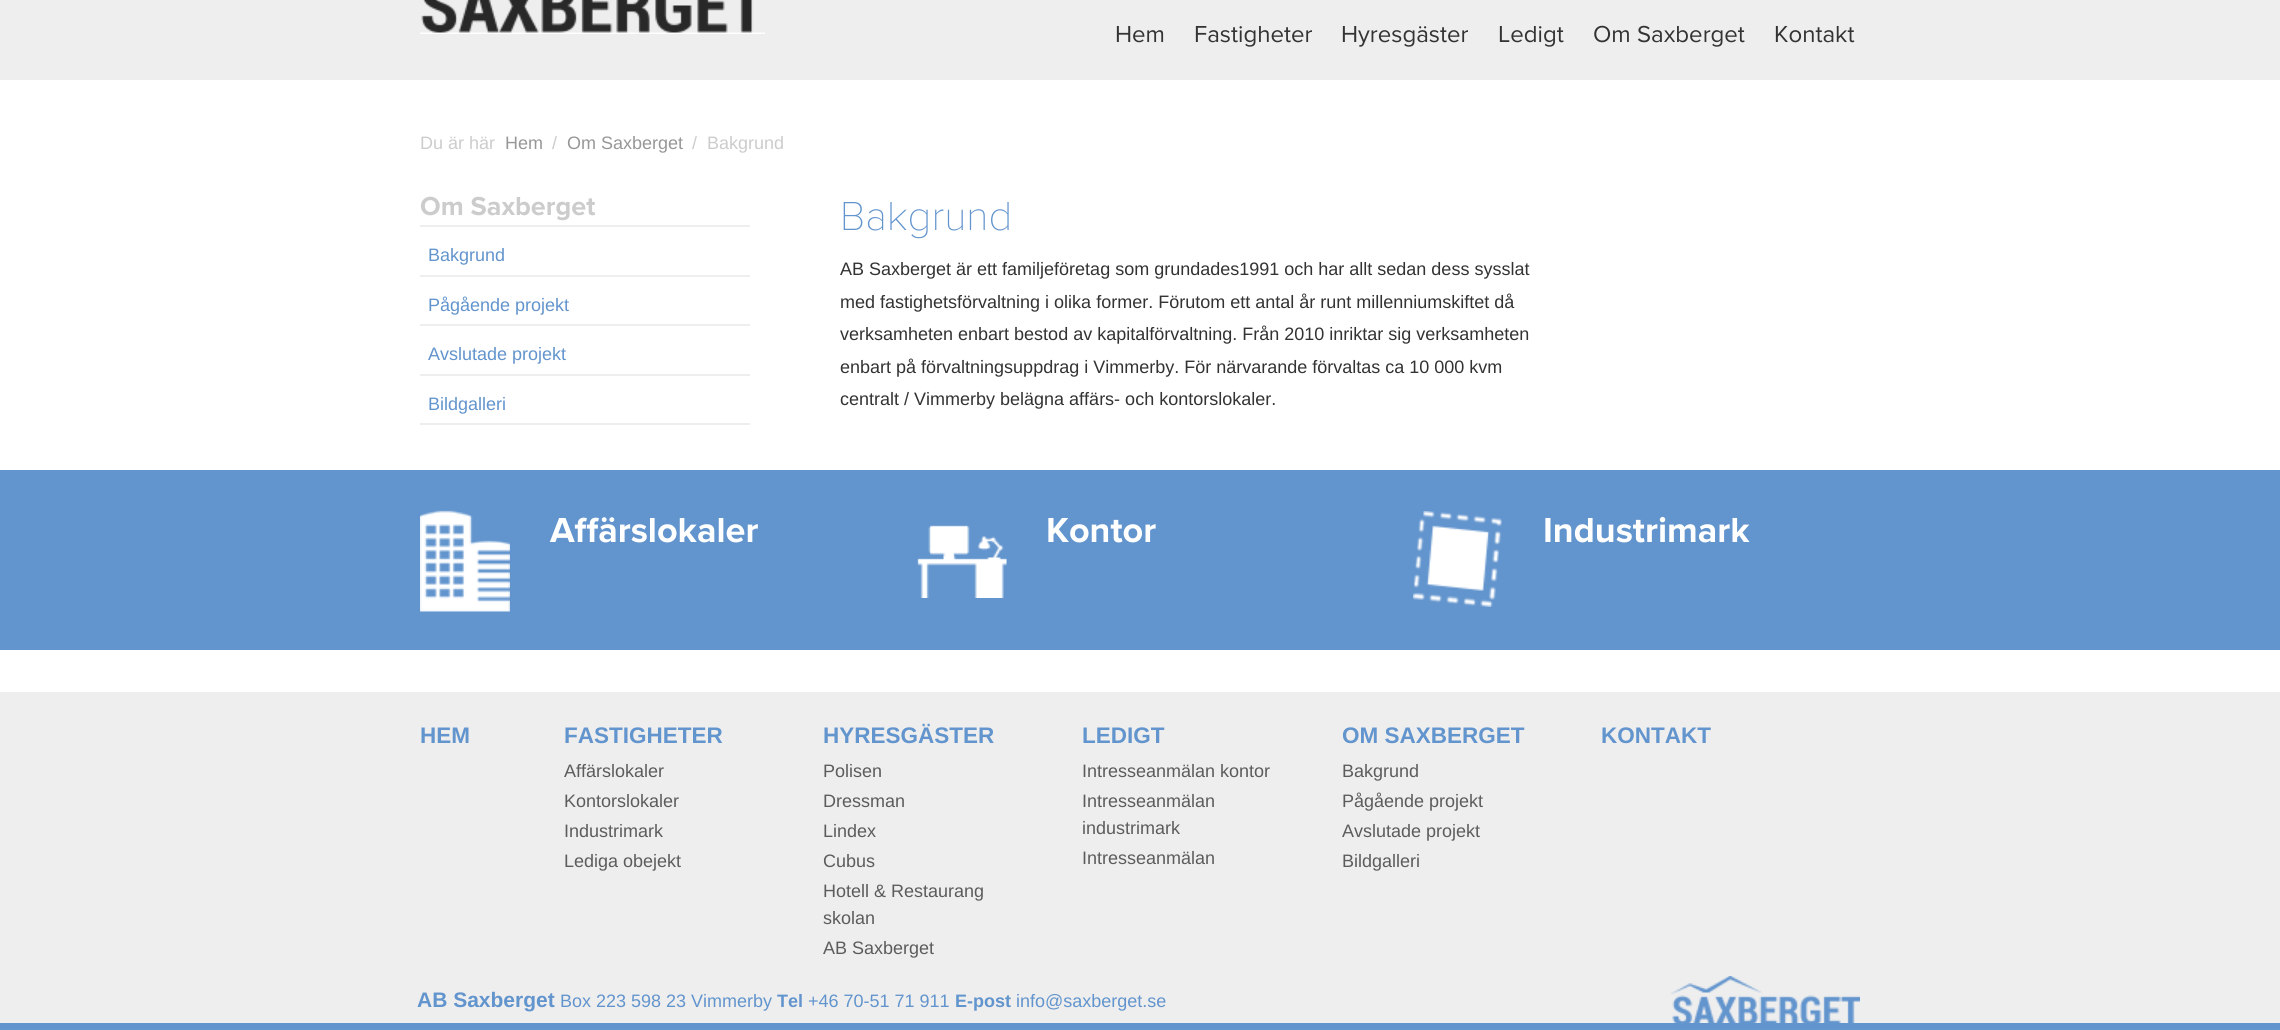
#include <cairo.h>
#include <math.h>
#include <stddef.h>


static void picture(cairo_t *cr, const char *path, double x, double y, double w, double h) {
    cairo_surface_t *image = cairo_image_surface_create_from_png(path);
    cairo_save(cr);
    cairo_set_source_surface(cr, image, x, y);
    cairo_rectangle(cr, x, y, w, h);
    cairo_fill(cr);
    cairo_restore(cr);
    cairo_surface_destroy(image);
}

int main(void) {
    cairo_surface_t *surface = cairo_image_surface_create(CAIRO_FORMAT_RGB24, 2280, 1030);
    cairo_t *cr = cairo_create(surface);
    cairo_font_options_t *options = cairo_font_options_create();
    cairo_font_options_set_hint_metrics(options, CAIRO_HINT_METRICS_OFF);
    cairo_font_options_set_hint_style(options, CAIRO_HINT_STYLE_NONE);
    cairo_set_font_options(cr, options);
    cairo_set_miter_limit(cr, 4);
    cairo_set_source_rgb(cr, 1, 1, 1);
    cairo_paint(cr);
    cairo_set_source_rgb(cr, 0.933, 0.933, 0.933);
    cairo_rectangle(cr, 0, 0, 2280, 80);
    cairo_fill(cr);
    picture(cr, "img1.png", 420, 0, 345, 34);
    cairo_select_font_face(cr, "Proxima Nova", CAIRO_FONT_SLANT_NORMAL, CAIRO_FONT_WEIGHT_NORMAL);
    cairo_set_font_size(cr, 24);
    cairo_set_source_rgb(cr, 0.2, 0.2, 0.2);
    cairo_move_to(cr, 1115, 42);
    cairo_show_text(cr, "Hem");
    cairo_move_to(cr, 1194, 42);
    cairo_show_text(cr, "Fastigheter");
    cairo_move_to(cr, 1341, 42);
    cairo_show_text(cr, "Hyresgäster");
    cairo_move_to(cr, 1498, 42);
    cairo_show_text(cr, "Ledigt");
    cairo_move_to(cr, 1593, 42);
    cairo_show_text(cr, "Om Saxberget");
    cairo_move_to(cr, 1774, 42);
    cairo_show_text(cr, "Kontakt");
    cairo_select_font_face(cr, "Liberation Sans", CAIRO_FONT_SLANT_NORMAL, CAIRO_FONT_WEIGHT_NORMAL);
    cairo_set_font_size(cr, 18);
    cairo_set_source_rgb(cr, 0.8, 0.8, 0.8);
    cairo_move_to(cr, 420, 149);
    cairo_show_text(cr, "Du är här");
    cairo_set_source_rgb(cr, 0.592, 0.592, 0.592);
    cairo_move_to(cr, 505, 149);
    cairo_show_text(cr, "Hem");
    cairo_set_source_rgb(cr, 0.8, 0.8, 0.8);
    cairo_move_to(cr, 552, 149);
    cairo_show_text(cr, "/");
    cairo_set_source_rgb(cr, 0.592, 0.592, 0.592);
    cairo_move_to(cr, 567, 149);
    cairo_show_text(cr, "Om Saxberget");
    cairo_set_source_rgb(cr, 0.8, 0.8, 0.8);
    cairo_move_to(cr, 692, 149);
    cairo_show_text(cr, "/");
    cairo_move_to(cr, 707, 149);
    cairo_show_text(cr, "Bakgrund");
    cairo_set_source_rgb(cr, 0.933, 0.933, 0.933);
    cairo_rectangle(cr, 420, 225, 330, 2);
    cairo_fill(cr);
    cairo_select_font_face(cr, "Proxima Nova", CAIRO_FONT_SLANT_NORMAL, CAIRO_FONT_WEIGHT_BOLD);
    cairo_set_font_size(cr, 27);
    cairo_set_source_rgb(cr, 0.8, 0.8, 0.8);
    cairo_move_to(cr, 420, 215);
    cairo_show_text(cr, "Om Saxberget");
    cairo_set_source_rgb(cr, 0.933, 0.933, 0.933);
    cairo_rectangle(cr, 420, 275, 330, 2);
    cairo_fill(cr);
    cairo_select_font_face(cr, "Liberation Sans", CAIRO_FONT_SLANT_NORMAL, CAIRO_FONT_WEIGHT_NORMAL);
    cairo_set_font_size(cr, 18);
    cairo_set_source_rgb(cr, 0.384, 0.58, 0.804);
    cairo_move_to(cr, 428, 261);
    cairo_show_text(cr, "Bakgrund");
    cairo_set_source_rgb(cr, 0.933, 0.933, 0.933);
    cairo_rectangle(cr, 420, 324, 330, 2);
    cairo_fill(cr);
    cairo_set_source_rgb(cr, 0.384, 0.58, 0.804);
    cairo_move_to(cr, 428, 311);
    cairo_show_text(cr, "Pågående projekt");
    cairo_set_source_rgb(cr, 0.933, 0.933, 0.933);
    cairo_rectangle(cr, 420, 374, 330, 2);
    cairo_fill(cr);
    cairo_set_source_rgb(cr, 0.384, 0.58, 0.804);
    cairo_move_to(cr, 428, 360);
    cairo_show_text(cr, "Avslutade projekt");
    cairo_set_source_rgb(cr, 0.933, 0.933, 0.933);
    cairo_rectangle(cr, 420, 423, 330, 2);
    cairo_fill(cr);
    cairo_set_source_rgb(cr, 0.384, 0.58, 0.804);
    cairo_move_to(cr, 428, 410);
    cairo_show_text(cr, "Bildgalleri");
    cairo_select_font_face(cr, "Proxima Nova Thin", CAIRO_FONT_SLANT_NORMAL, CAIRO_FONT_WEIGHT_NORMAL);
    cairo_set_font_size(cr, 42);
    cairo_move_to(cr, 840, 230);
    cairo_show_text(cr, "Bakgrund");
    cairo_select_font_face(cr, "Liberation Sans", CAIRO_FONT_SLANT_NORMAL, CAIRO_FONT_WEIGHT_NORMAL);
    cairo_set_font_size(cr, 18);
    cairo_set_source_rgb(cr, 0.2, 0.2, 0.2);
    cairo_move_to(cr, 840, 275);
    cairo_show_text(cr, "AB Saxberget är ett familjeföretag som grundades1991 och har allt sedan dess sysslat");
    cairo_move_to(cr, 840, 308);
    cairo_show_text(cr, "med fastighetsförvaltning i olika former. Förutom ett antal år runt millenniumskiftet då");
    cairo_move_to(cr, 840, 340);
    cairo_show_text(cr, "verksamheten enbart bestod av kapitalförvaltning. Från 2010 inriktar sig verksamheten");
    cairo_move_to(cr, 840, 373);
    cairo_show_text(cr, "enbart på förvaltningsuppdrag i Vimmerby. För närvarande förvaltas ca 10 000 kvm");
    cairo_move_to(cr, 840, 405);
    cairo_show_text(cr, "centralt / Vimmerby belägna affärs- och kontorslokaler.");
    cairo_set_source_rgb(cr, 0.384, 0.58, 0.804);
    cairo_rectangle(cr, 0, 470, 2280, 180);
    cairo_fill(cr);
    picture(cr, "img2.png", 420, 510, 90, 102);
    cairo_select_font_face(cr, "Proxima Nova", CAIRO_FONT_SLANT_NORMAL, CAIRO_FONT_WEIGHT_BOLD);
    cairo_set_font_size(cr, 36);
    cairo_set_source_rgb(cr, 1, 1, 1);
    cairo_move_to(cr, 550, 542);
    cairo_show_text(cr, "Affärslokaler");
    picture(cr, "img3.png", 917, 525, 90, 73);
    cairo_move_to(cr, 1046, 542);
    cairo_show_text(cr, "Kontor");
    picture(cr, "img4.png", 1413, 511, 89, 96);
    cairo_move_to(cr, 1543, 542);
    cairo_show_text(cr, "Industrimark");
    cairo_set_source_rgb(cr, 0.933, 0.933, 0.933);
    cairo_rectangle(cr, 0, 692, 2280, 331);
    cairo_fill(cr);
    cairo_set_source_rgb(cr, 0.384, 0.58, 0.804);
    cairo_rectangle(cr, 0, 1023, 2280, 7);
    cairo_fill(cr);
    picture(cr, "img5.png", 1671, 976, 189, 47);
    cairo_select_font_face(cr, "Liberation Sans", CAIRO_FONT_SLANT_NORMAL, CAIRO_FONT_WEIGHT_BOLD);
    cairo_set_font_size(cr, 22.5);
    cairo_move_to(cr, 420, 743);
    cairo_show_text(cr, "HEM");
    cairo_move_to(cr, 564, 743);
    cairo_show_text(cr, "FASTIGHETER");
    cairo_select_font_face(cr, "Liberation Sans", CAIRO_FONT_SLANT_NORMAL, CAIRO_FONT_WEIGHT_NORMAL);
    cairo_set_font_size(cr, 18);
    cairo_set_source_rgb(cr, 0.361, 0.361, 0.361);
    cairo_move_to(cr, 564, 777);
    cairo_show_text(cr, "Affärslokaler");
    cairo_move_to(cr, 564, 807);
    cairo_show_text(cr, "Kontorslokaler");
    cairo_move_to(cr, 564, 837);
    cairo_show_text(cr, "Industrimark");
    cairo_move_to(cr, 564, 867);
    cairo_show_text(cr, "Lediga obejekt");
    cairo_select_font_face(cr, "Liberation Sans", CAIRO_FONT_SLANT_NORMAL, CAIRO_FONT_WEIGHT_BOLD);
    cairo_set_font_size(cr, 22.5);
    cairo_set_source_rgb(cr, 0.384, 0.58, 0.804);
    cairo_move_to(cr, 823, 743);
    cairo_show_text(cr, "HYRESGÄSTER");
    cairo_select_font_face(cr, "Liberation Sans", CAIRO_FONT_SLANT_NORMAL, CAIRO_FONT_WEIGHT_NORMAL);
    cairo_set_font_size(cr, 18);
    cairo_set_source_rgb(cr, 0.361, 0.361, 0.361);
    cairo_move_to(cr, 823, 777);
    cairo_show_text(cr, "Polisen");
    cairo_move_to(cr, 823, 807);
    cairo_show_text(cr, "Dressman");
    cairo_move_to(cr, 823, 837);
    cairo_show_text(cr, "Lindex");
    cairo_move_to(cr, 823, 867);
    cairo_show_text(cr, "Cubus");
    cairo_move_to(cr, 823, 897);
    cairo_show_text(cr, "Hotell & Restaurang");
    cairo_move_to(cr, 823, 924);
    cairo_show_text(cr, "skolan");
    cairo_move_to(cr, 823, 954);
    cairo_show_text(cr, "AB Saxberget");
    cairo_select_font_face(cr, "Liberation Sans", CAIRO_FONT_SLANT_NORMAL, CAIRO_FONT_WEIGHT_BOLD);
    cairo_set_font_size(cr, 22.5);
    cairo_set_source_rgb(cr, 0.384, 0.58, 0.804);
    cairo_move_to(cr, 1082, 743);
    cairo_show_text(cr, "LEDIGT");
    cairo_select_font_face(cr, "Liberation Sans", CAIRO_FONT_SLANT_NORMAL, CAIRO_FONT_WEIGHT_NORMAL);
    cairo_set_font_size(cr, 18);
    cairo_set_source_rgb(cr, 0.361, 0.361, 0.361);
    cairo_move_to(cr, 1082, 777);
    cairo_show_text(cr, "Intresseanmälan kontor");
    cairo_move_to(cr, 1082, 807);
    cairo_show_text(cr, "Intresseanmälan");
    cairo_move_to(cr, 1082, 834);
    cairo_show_text(cr, "industrimark");
    cairo_move_to(cr, 1082, 864);
    cairo_show_text(cr, "Intresseanmälan");
    cairo_select_font_face(cr, "Liberation Sans", CAIRO_FONT_SLANT_NORMAL, CAIRO_FONT_WEIGHT_BOLD);
    cairo_set_font_size(cr, 22.5);
    cairo_set_source_rgb(cr, 0.384, 0.58, 0.804);
    cairo_move_to(cr, 1342, 743);
    cairo_show_text(cr, "OM SAXBERGET");
    cairo_select_font_face(cr, "Liberation Sans", CAIRO_FONT_SLANT_NORMAL, CAIRO_FONT_WEIGHT_NORMAL);
    cairo_set_font_size(cr, 18);
    cairo_set_source_rgb(cr, 0.361, 0.361, 0.361);
    cairo_move_to(cr, 1342, 777);
    cairo_show_text(cr, "Bakgrund");
    cairo_move_to(cr, 1342, 807);
    cairo_show_text(cr, "Pågående projekt");
    cairo_move_to(cr, 1342, 837);
    cairo_show_text(cr, "Avslutade projekt");
    cairo_move_to(cr, 1342, 867);
    cairo_show_text(cr, "Bildgalleri");
    cairo_select_font_face(cr, "Liberation Sans", CAIRO_FONT_SLANT_NORMAL, CAIRO_FONT_WEIGHT_BOLD);
    cairo_set_font_size(cr, 22.5);
    cairo_set_source_rgb(cr, 0.384, 0.58, 0.804);
    cairo_move_to(cr, 1601, 743);
    cairo_show_text(cr, "KONTAKT");
    cairo_set_font_size(cr, 21);
    cairo_move_to(cr, 417, 1007);
    cairo_show_text(cr, "AB Saxberget");
    cairo_select_font_face(cr, "Liberation Sans", CAIRO_FONT_SLANT_NORMAL, CAIRO_FONT_WEIGHT_NORMAL);
    cairo_set_font_size(cr, 18);
    cairo_move_to(cr, 560, 1007);
    cairo_show_text(cr, "Box 223 598 23 Vimmerby");
    cairo_select_font_face(cr, "Liberation Sans", CAIRO_FONT_SLANT_NORMAL, CAIRO_FONT_WEIGHT_BOLD);
    cairo_move_to(cr, 777, 1007);
    cairo_show_text(cr, "Tel");
    cairo_select_font_face(cr, "Liberation Sans", CAIRO_FONT_SLANT_NORMAL, CAIRO_FONT_WEIGHT_NORMAL);
    cairo_move_to(cr, 808, 1007);
    cairo_show_text(cr, "+46 70-51 71 911");
    cairo_select_font_face(cr, "Liberation Sans", CAIRO_FONT_SLANT_NORMAL, CAIRO_FONT_WEIGHT_BOLD);
    cairo_move_to(cr, 955, 1007);
    cairo_show_text(cr, "E-post");
    cairo_select_font_face(cr, "Liberation Sans", CAIRO_FONT_SLANT_NORMAL, CAIRO_FONT_WEIGHT_NORMAL);
    cairo_move_to(cr, 1016, 1007);
    cairo_show_text(cr, "info@saxberget.se");
    cairo_surface_write_to_png(surface, "page.png");
    cairo_font_options_destroy(options);
    cairo_destroy(cr);
    cairo_surface_destroy(surface);
    return 0;
}
